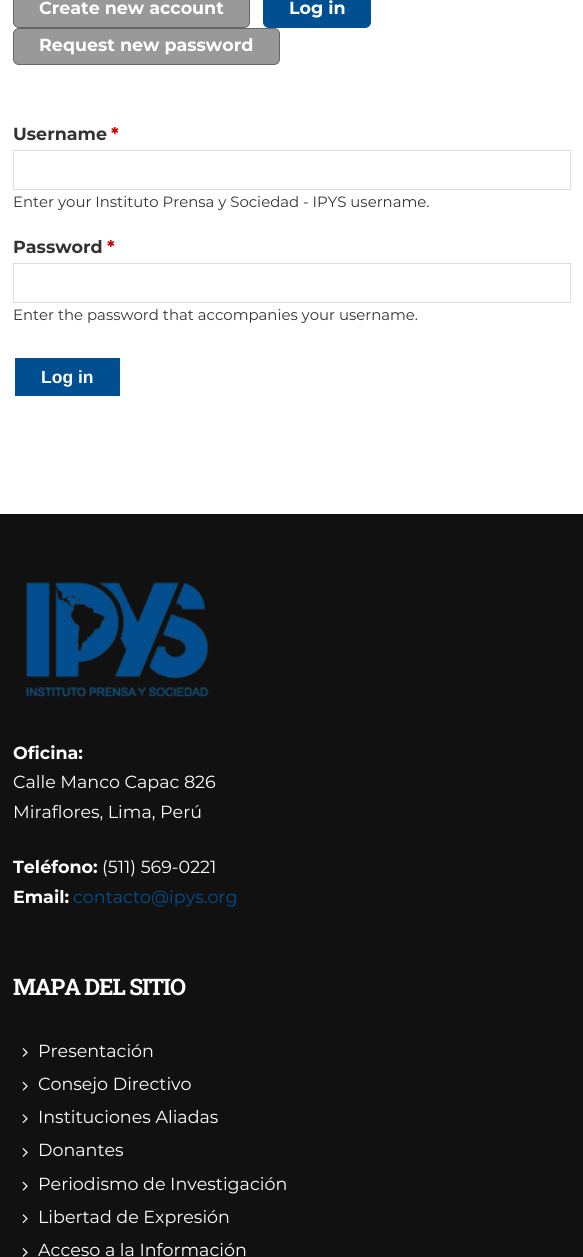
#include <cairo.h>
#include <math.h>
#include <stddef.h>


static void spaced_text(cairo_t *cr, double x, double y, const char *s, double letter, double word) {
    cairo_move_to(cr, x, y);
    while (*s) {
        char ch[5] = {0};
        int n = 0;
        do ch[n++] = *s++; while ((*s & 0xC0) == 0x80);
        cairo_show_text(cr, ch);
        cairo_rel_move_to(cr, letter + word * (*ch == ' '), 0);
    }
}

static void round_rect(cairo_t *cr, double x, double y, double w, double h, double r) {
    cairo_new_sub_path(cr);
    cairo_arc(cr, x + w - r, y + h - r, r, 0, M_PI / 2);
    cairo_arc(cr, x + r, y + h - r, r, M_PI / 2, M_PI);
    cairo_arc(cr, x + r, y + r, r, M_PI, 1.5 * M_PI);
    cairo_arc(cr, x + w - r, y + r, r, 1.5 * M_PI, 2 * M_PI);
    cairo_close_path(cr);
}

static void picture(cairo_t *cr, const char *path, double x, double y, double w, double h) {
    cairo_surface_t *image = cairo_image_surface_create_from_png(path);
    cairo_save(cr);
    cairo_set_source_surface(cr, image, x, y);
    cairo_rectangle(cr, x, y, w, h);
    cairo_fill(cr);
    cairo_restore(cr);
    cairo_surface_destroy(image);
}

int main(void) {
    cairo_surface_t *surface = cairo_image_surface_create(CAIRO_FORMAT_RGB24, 583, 1257);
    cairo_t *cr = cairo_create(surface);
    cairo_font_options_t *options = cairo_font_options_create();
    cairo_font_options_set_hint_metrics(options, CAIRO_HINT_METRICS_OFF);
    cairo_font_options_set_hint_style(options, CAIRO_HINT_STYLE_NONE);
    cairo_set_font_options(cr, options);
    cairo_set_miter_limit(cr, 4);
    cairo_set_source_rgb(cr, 1, 1, 1);
    cairo_paint(cr);
    cairo_set_source_rgb(cr, 0.6, 0.6, 0.6);
    round_rect(cr, 13.5, -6.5, 236, 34, 5.5);
    cairo_fill_preserve(cr);
    cairo_set_source_rgb(cr, 0.4, 0.4, 0.4);
    cairo_set_line_width(cr, 1);
    cairo_stroke(cr);
    cairo_select_font_face(cr, "Montserrat", CAIRO_FONT_SLANT_NORMAL, CAIRO_FONT_WEIGHT_BOLD);
    cairo_set_font_size(cr, 17.5);
    cairo_set_source_rgb(cr, 1, 1, 1);
    cairo_move_to(cr, 39, 14);
    cairo_show_text(cr, "Create new account");
    cairo_set_source_rgb(cr, 0, 0.31, 0.565);
    round_rect(cr, 263.5, -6.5, 107, 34, 5.5);
    cairo_fill_preserve(cr);
    cairo_stroke(cr);
    cairo_set_source_rgb(cr, 1, 1, 1);
    cairo_move_to(cr, 289, 14);
    cairo_show_text(cr, "Log in");
    cairo_set_source_rgb(cr, 0.6, 0.6, 0.6);
    round_rect(cr, 13.5, 28.5, 266, 36, 5.5);
    cairo_fill_preserve(cr);
    cairo_set_source_rgb(cr, 0.4, 0.4, 0.4);
    cairo_stroke(cr);
    cairo_set_source_rgb(cr, 1, 1, 1);
    cairo_move_to(cr, 39, 51);
    cairo_show_text(cr, "Request new password");
    cairo_set_source_rgb(cr, 0.2, 0.2, 0.2);
    cairo_move_to(cr, 13, 140);
    cairo_show_text(cr, "Username");
    cairo_set_source_rgb(cr, 0.8, 0, 0);
    cairo_move_to(cr, 111, 140);
    cairo_show_text(cr, "*");
    cairo_rectangle(cr, 13.5, 150.5, 557, 39);
    cairo_set_source_rgb(cr, 0.867, 0.867, 0.867);
    cairo_stroke(cr);
    cairo_select_font_face(cr, "Montserrat", CAIRO_FONT_SLANT_NORMAL, CAIRO_FONT_WEIGHT_NORMAL);
    cairo_set_font_size(cr, 14.9);
    cairo_set_source_rgb(cr, 0.2, 0.2, 0.2);
    cairo_move_to(cr, 13, 207);
    cairo_show_text(cr, "Enter your Instituto Prensa y Sociedad - IPYS username.");
    cairo_select_font_face(cr, "Montserrat", CAIRO_FONT_SLANT_NORMAL, CAIRO_FONT_WEIGHT_BOLD);
    cairo_set_font_size(cr, 17.5);
    cairo_move_to(cr, 13, 253);
    cairo_show_text(cr, "Password");
    cairo_set_source_rgb(cr, 0.8, 0, 0);
    cairo_move_to(cr, 107, 253);
    cairo_show_text(cr, "*");
    cairo_rectangle(cr, 13.5, 263.5, 557, 39);
    cairo_set_source_rgb(cr, 0.867, 0.867, 0.867);
    cairo_stroke(cr);
    cairo_select_font_face(cr, "Montserrat", CAIRO_FONT_SLANT_NORMAL, CAIRO_FONT_WEIGHT_NORMAL);
    cairo_set_font_size(cr, 14.9);
    cairo_set_source_rgb(cr, 0.2, 0.2, 0.2);
    cairo_move_to(cr, 13, 320);
    cairo_show_text(cr, "Enter the password that accompanies your username.");
    cairo_set_source_rgb(cr, 0, 0.31, 0.565);
    cairo_rectangle(cr, 15, 358, 105, 38);
    cairo_fill(cr);
    cairo_select_font_face(cr, "Liberation Sans", CAIRO_FONT_SLANT_NORMAL, CAIRO_FONT_WEIGHT_BOLD);
    cairo_set_font_size(cr, 17.5);
    cairo_set_source_rgb(cr, 1, 1, 1);
    cairo_move_to(cr, 41, 383);
    cairo_show_text(cr, "Log in");
    cairo_set_source_rgb(cr, 0.067, 0.067, 0.067);
    cairo_rectangle(cr, 0, 514, 583, 743);
    cairo_fill(cr);
    picture(cr, "img1.png", 26, 582, 183, 116);
    cairo_select_font_face(cr, "Montserrat", CAIRO_FONT_SLANT_NORMAL, CAIRO_FONT_WEIGHT_BOLD);
    cairo_set_source_rgb(cr, 1, 1, 1);
    cairo_move_to(cr, 13, 759);
    cairo_show_text(cr, "Oficina:");
    cairo_select_font_face(cr, "Montserrat", CAIRO_FONT_SLANT_NORMAL, CAIRO_FONT_WEIGHT_NORMAL);
    cairo_move_to(cr, 13, 788);
    cairo_show_text(cr, "Calle Manco Capac 826");
    cairo_move_to(cr, 13, 818);
    cairo_show_text(cr, "Miraflores, Lima, Perú");
    cairo_select_font_face(cr, "Montserrat", CAIRO_FONT_SLANT_NORMAL, CAIRO_FONT_WEIGHT_BOLD);
    cairo_move_to(cr, 13, 873);
    cairo_show_text(cr, "Teléfono:");
    cairo_select_font_face(cr, "Montserrat", CAIRO_FONT_SLANT_NORMAL, CAIRO_FONT_WEIGHT_NORMAL);
    cairo_move_to(cr, 102, 873);
    cairo_show_text(cr, "(511) 569-0221");
    cairo_select_font_face(cr, "Montserrat", CAIRO_FONT_SLANT_NORMAL, CAIRO_FONT_WEIGHT_BOLD);
    cairo_move_to(cr, 13, 903);
    cairo_show_text(cr, "Email:");
    cairo_select_font_face(cr, "Montserrat", CAIRO_FONT_SLANT_NORMAL, CAIRO_FONT_WEIGHT_NORMAL);
    cairo_set_source_rgb(cr, 0, 0.31, 0.565);
    cairo_move_to(cr, 73, 903);
    cairo_show_text(cr, "contacto@ipys.org");
    cairo_select_font_face(cr, "Roboto Slab", CAIRO_FONT_SLANT_NORMAL, CAIRO_FONT_WEIGHT_BOLD);
    cairo_set_font_size(cr, 22.75);
    cairo_set_source_rgb(cr, 1, 1, 1);
    spaced_text(cr, 13, 995, "MAPA DEL SITIO", -1.1, 0);
    picture(cr, "img2.png", 22, 1048, 6, 9);
    cairo_select_font_face(cr, "Montserrat", CAIRO_FONT_SLANT_NORMAL, CAIRO_FONT_WEIGHT_NORMAL);
    cairo_set_font_size(cr, 17.5);
    cairo_move_to(cr, 38, 1057);
    cairo_show_text(cr, "Presentación");
    picture(cr, "img3.png", 22, 1081, 6, 10);
    cairo_move_to(cr, 38, 1090);
    cairo_show_text(cr, "Consejo Directivo");
    picture(cr, "img4.png", 22, 1114, 6, 9);
    cairo_move_to(cr, 38, 1123);
    cairo_show_text(cr, "Instituciones Aliadas");
    picture(cr, "img2.png", 22, 1148, 6, 9);
    cairo_move_to(cr, 38, 1156);
    cairo_show_text(cr, "Donantes");
    picture(cr, "img3.png", 22, 1181, 6, 10);
    cairo_move_to(cr, 38, 1190);
    cairo_show_text(cr, "Periodismo de Investigación");
    picture(cr, "img4.png", 22, 1214, 6, 9);
    cairo_move_to(cr, 38, 1223);
    cairo_show_text(cr, "Libertad de Expresión");
    picture(cr, "img2.png", 22, 1248, 6, 9);
    cairo_move_to(cr, 38, 1256);
    cairo_show_text(cr, "Acceso a la Información");
    cairo_surface_write_to_png(surface, "page.png");
    cairo_font_options_destroy(options);
    cairo_destroy(cr);
    cairo_surface_destroy(surface);
    return 0;
}
